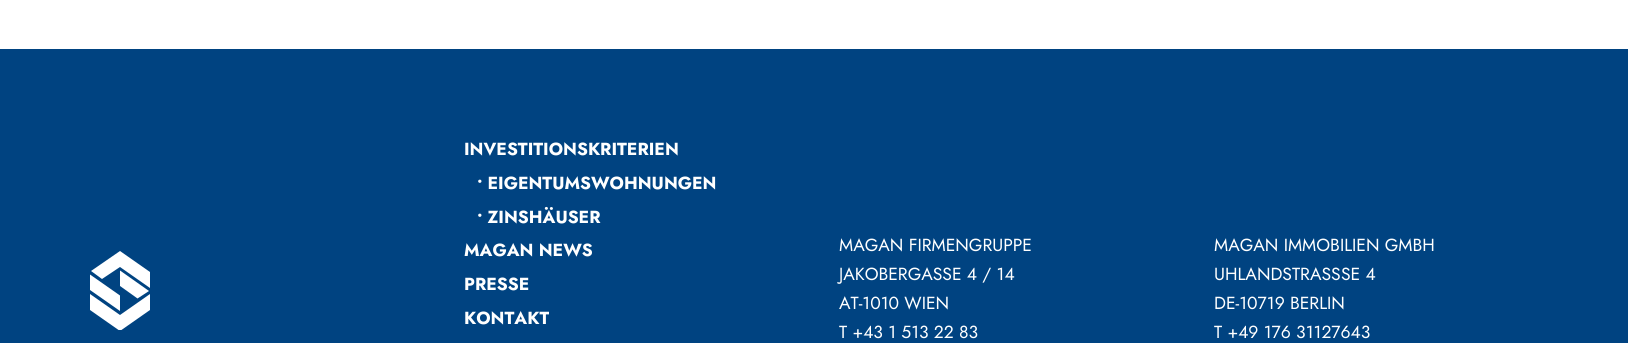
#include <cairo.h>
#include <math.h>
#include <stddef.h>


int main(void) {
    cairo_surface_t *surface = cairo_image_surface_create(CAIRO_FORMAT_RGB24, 1628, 343);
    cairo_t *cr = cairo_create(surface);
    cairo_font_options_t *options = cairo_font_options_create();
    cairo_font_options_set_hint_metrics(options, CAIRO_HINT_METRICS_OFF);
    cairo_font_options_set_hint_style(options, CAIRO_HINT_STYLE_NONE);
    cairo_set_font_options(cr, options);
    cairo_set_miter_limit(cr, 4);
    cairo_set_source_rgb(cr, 1, 1, 1);
    cairo_paint(cr);
    cairo_set_source_rgb(cr, 0, 0.263, 0.506);
    cairo_rectangle(cr, 0, 49, 1628, 294);
    cairo_fill(cr);
    cairo_save(cr);
    cairo_rectangle(cr, 90, 251, 60, 79);
    cairo_clip(cr);
    cairo_set_source_rgb(cr, 1, 1, 1);
    cairo_new_path(cr);
    cairo_move_to(cr, 120, 315);
    cairo_line_to(cr, 90, 294);
    cairo_line_to(cr, 90, 310);
    cairo_line_to(cr, 120, 331);
    cairo_line_to(cr, 150, 310);
    cairo_line_to(cr, 150, 294);
    cairo_close_path(cr);
    cairo_fill(cr);
    cairo_restore(cr);
    cairo_set_source_rgb(cr, 1, 1, 1);
    cairo_new_path(cr);
    cairo_move_to(cr, 137.5, 298.5);
    cairo_line_to(cr, 120, 286);
    cairo_line_to(cr, 120, 270.5);
    cairo_line_to(cr, 149, 291);
    cairo_close_path(cr);
    cairo_fill(cr);
    cairo_new_path(cr);
    cairo_move_to(cr, 120, 251);
    cairo_line_to(cr, 91, 271);
    cairo_line_to(cr, 102, 279);
    cairo_line_to(cr, 120, 267);
    cairo_line_to(cr, 150, 288);
    cairo_line_to(cr, 150, 272);
    cairo_close_path(cr);
    cairo_fill(cr);
    cairo_new_path(cr);
    cairo_move_to(cr, 90, 290);
    cairo_line_to(cr, 120, 311);
    cairo_line_to(cr, 120, 295.5);
    cairo_line_to(cr, 90, 274.5);
    cairo_close_path(cr);
    cairo_fill(cr);
    cairo_select_font_face(cr, "Jost", CAIRO_FONT_SLANT_NORMAL, CAIRO_FONT_WEIGHT_BOLD);
    cairo_set_font_size(cr, 17.5);
    cairo_move_to(cr, 464, 155);
    cairo_show_text(cr, "INVESTITIONSKRITERIEN");
    cairo_move_to(cr, 477, 189);
    cairo_show_text(cr, "• EIGENTUMSWOHNUNGEN");
    cairo_move_to(cr, 477, 223);
    cairo_show_text(cr, "• ZINSHÄUSER");
    cairo_move_to(cr, 464, 256);
    cairo_show_text(cr, "MAGAN NEWS");
    cairo_move_to(cr, 464, 290);
    cairo_show_text(cr, "PRESSE");
    cairo_move_to(cr, 464, 324);
    cairo_show_text(cr, "KONTAKT");
    cairo_select_font_face(cr, "Jost", CAIRO_FONT_SLANT_NORMAL, CAIRO_FONT_WEIGHT_NORMAL);
    cairo_move_to(cr, 839, 251);
    cairo_show_text(cr, "MAGAN FIRMENGRUPPE");
    cairo_move_to(cr, 839, 280);
    cairo_show_text(cr, "JAKOBERGASSE 4 / 14");
    cairo_move_to(cr, 839, 309);
    cairo_show_text(cr, "AT-1010 WIEN");
    cairo_move_to(cr, 839, 338);
    cairo_show_text(cr, "T +43 1 513 22 83");
    cairo_move_to(cr, 1214, 251);
    cairo_show_text(cr, "MAGAN IMMOBILIEN GMBH");
    cairo_move_to(cr, 1214, 280);
    cairo_show_text(cr, "UHLANDSTRASS");
    cairo_move_to(cr, 1341, 280);
    cairo_show_text(cr, "SE 4");
    cairo_move_to(cr, 1214, 309);
    cairo_show_text(cr, "DE-10719 BERLIN");
    cairo_move_to(cr, 1214, 338);
    cairo_show_text(cr, "T +49 176 31127643");
    cairo_surface_write_to_png(surface, "page.png");
    cairo_font_options_destroy(options);
    cairo_destroy(cr);
    cairo_surface_destroy(surface);
    return 0;
}
